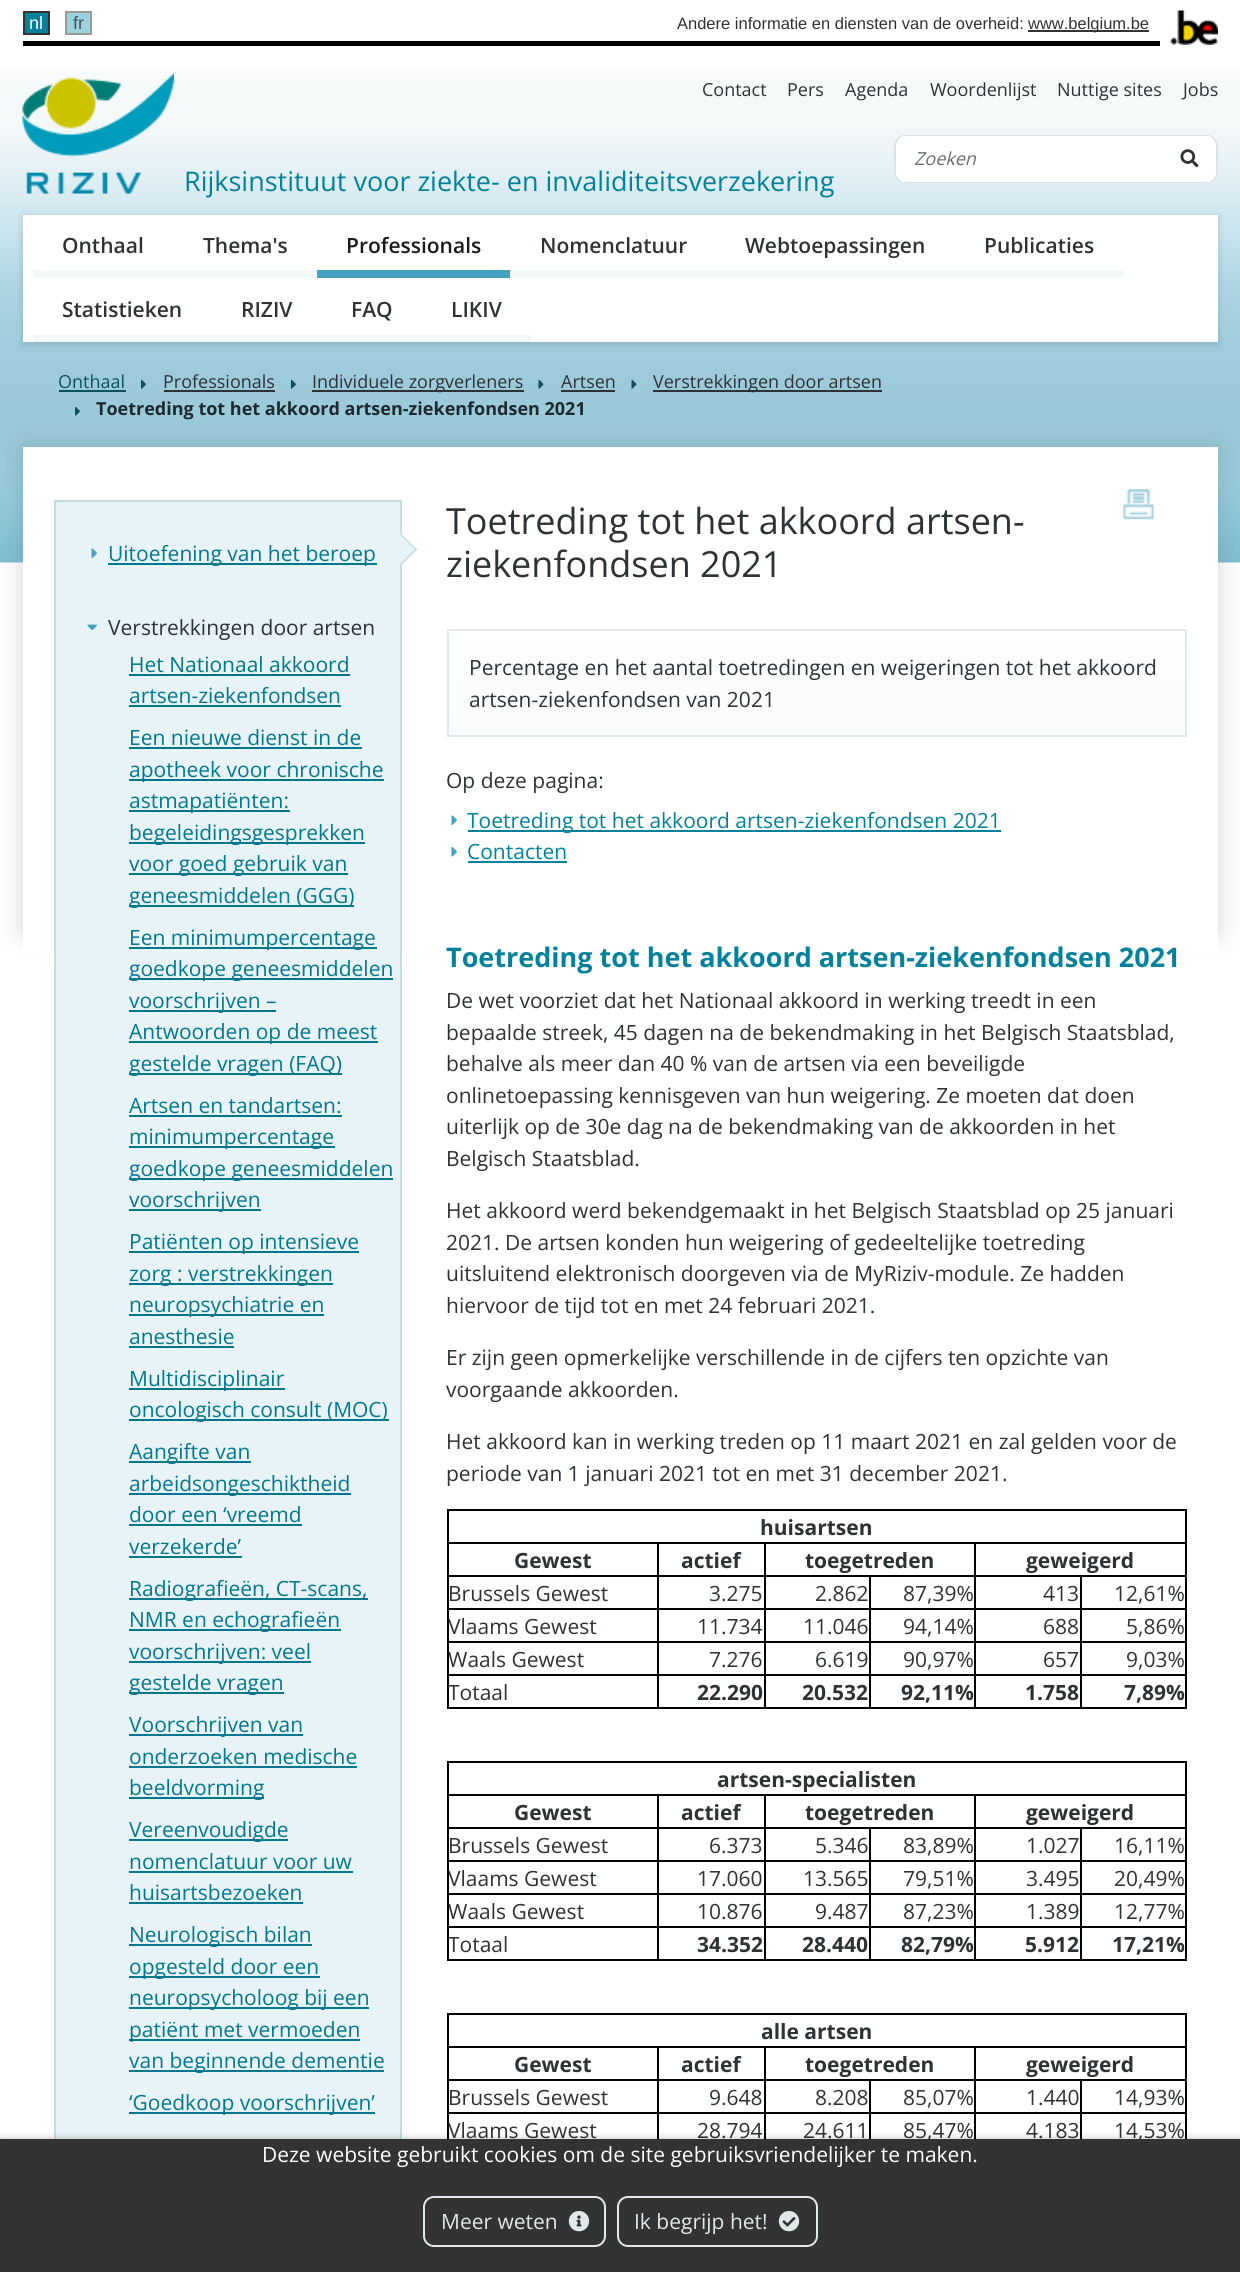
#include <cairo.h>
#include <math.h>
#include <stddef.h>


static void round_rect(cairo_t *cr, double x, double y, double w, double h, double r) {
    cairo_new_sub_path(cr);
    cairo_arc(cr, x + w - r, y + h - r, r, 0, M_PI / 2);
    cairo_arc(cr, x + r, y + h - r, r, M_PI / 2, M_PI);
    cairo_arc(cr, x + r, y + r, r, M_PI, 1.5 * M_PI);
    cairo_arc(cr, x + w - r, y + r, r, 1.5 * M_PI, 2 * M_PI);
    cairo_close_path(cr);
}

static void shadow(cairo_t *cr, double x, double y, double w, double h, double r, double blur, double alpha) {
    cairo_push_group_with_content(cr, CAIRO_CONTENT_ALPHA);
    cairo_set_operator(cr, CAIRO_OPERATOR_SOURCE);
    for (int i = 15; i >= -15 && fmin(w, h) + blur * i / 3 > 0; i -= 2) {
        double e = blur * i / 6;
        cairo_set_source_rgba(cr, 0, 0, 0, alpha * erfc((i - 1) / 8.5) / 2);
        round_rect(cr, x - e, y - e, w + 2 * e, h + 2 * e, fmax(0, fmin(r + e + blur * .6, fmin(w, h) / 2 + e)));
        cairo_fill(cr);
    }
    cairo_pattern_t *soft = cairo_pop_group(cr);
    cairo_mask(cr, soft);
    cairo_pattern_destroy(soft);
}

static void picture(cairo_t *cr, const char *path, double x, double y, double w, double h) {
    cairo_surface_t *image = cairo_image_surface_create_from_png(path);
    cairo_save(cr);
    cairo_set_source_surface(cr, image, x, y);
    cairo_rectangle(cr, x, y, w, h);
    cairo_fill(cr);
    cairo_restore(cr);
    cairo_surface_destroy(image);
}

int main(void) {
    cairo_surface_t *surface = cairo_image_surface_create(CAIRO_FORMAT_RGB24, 1240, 2272);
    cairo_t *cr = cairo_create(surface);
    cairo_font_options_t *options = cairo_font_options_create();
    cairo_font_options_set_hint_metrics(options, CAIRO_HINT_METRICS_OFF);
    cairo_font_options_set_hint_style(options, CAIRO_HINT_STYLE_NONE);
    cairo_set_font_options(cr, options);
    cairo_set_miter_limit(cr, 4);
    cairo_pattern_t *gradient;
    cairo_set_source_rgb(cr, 1, 1, 1);
    cairo_paint(cr);
    picture(cr, "img1.png", 0, 68, 1240, 495);
    cairo_set_source_rgb(cr, 0, 0, 0);
    cairo_rectangle(cr, 23, 41, 1137, 5);
    cairo_fill(cr);
    cairo_set_source_rgb(cr, 0.008, 0.506, 0.608);
    cairo_rectangle(cr, 24, 12, 25, 22);
    cairo_fill_preserve(cr);
    cairo_set_source_rgb(cr, 0.2, 0.2, 0.2);
    cairo_stroke(cr);
    cairo_select_font_face(cr, "Liberation Sans", CAIRO_FONT_SLANT_NORMAL, CAIRO_FONT_WEIGHT_NORMAL);
    cairo_set_font_size(cr, 18);
    cairo_set_source_rgb(cr, 1, 1, 1);
    cairo_move_to(cr, 29, 29);
    cairo_show_text(cr, "nl");
    cairo_set_source_rgb(cr, 0.604, 0.824, 0.867);
    cairo_rectangle(cr, 66, 12, 25, 22);
    cairo_fill_preserve(cr);
    cairo_set_source_rgb(cr, 0.6, 0.6, 0.6);
    cairo_stroke(cr);
    cairo_set_source_rgb(cr, 0.286, 0.314, 0.341);
    cairo_move_to(cr, 73, 29);
    cairo_show_text(cr, "fr");
    cairo_set_font_size(cr, 16.5);
    cairo_set_source_rgb(cr, 0.176, 0.196, 0.208);
    cairo_move_to(cr, 677, 29);
    cairo_show_text(cr, "Andere informatie en diensten van de overheid:");
    cairo_set_source_rgb(cr, 0.2, 0.2, 0.2);
    cairo_rectangle(cr, 1028, 30, 121, 2);
    cairo_fill(cr);
    cairo_move_to(cr, 1028, 29);
    cairo_show_text(cr, "www.belgium.be");
    picture(cr, "img2.png", 1170, 10, 48, 35);
    cairo_select_font_face(cr, "Open Sans", CAIRO_FONT_SLANT_NORMAL, CAIRO_FONT_WEIGHT_NORMAL);
    cairo_set_font_size(cr, 18);
    cairo_set_source_rgb(cr, 0.176, 0.196, 0.208);
    cairo_move_to(cr, 702, 96);
    cairo_show_text(cr, "Contact");
    cairo_move_to(cr, 787, 96);
    cairo_show_text(cr, "Pers");
    cairo_move_to(cr, 845, 96);
    cairo_show_text(cr, "Agenda");
    cairo_move_to(cr, 930, 96);
    cairo_show_text(cr, "Woordenlijst");
    cairo_move_to(cr, 1057, 96);
    cairo_show_text(cr, "Nuttige sites");
    cairo_move_to(cr, 1183, 96);
    cairo_show_text(cr, "Jobs");
    cairo_set_source_rgb(cr, 1, 1, 1);
    round_rect(cr, 894, 135, 324, 48, 11);
    cairo_fill(cr);
    cairo_set_source_rgb(cr, 0.871, 0.886, 0.902);
    cairo_set_fill_rule(cr, CAIRO_FILL_RULE_EVEN_ODD);
    cairo_new_path(cr);
    cairo_move_to(cr, 904, 135);
    cairo_line_to(cr, 1164, 135);
    cairo_line_to(cr, 1164, 183);
    cairo_line_to(cr, 904, 183);
    cairo_curve_to(cr, 899, 183, 894, 178, 894, 172);
    cairo_line_to(cr, 894, 146);
    cairo_curve_to(cr, 894, 140, 899, 135, 904, 135);
    cairo_close_path(cr);
    cairo_move_to(cr, 904, 136);
    cairo_line_to(cr, 1164, 136);
    cairo_line_to(cr, 1164, 182);
    cairo_line_to(cr, 904, 182);
    cairo_curve_to(cr, 900, 182, 896, 177, 896, 172);
    cairo_line_to(cr, 896, 146);
    cairo_curve_to(cr, 896, 141, 900, 136, 904, 136);
    cairo_close_path(cr);
    cairo_fill(cr);
    cairo_select_font_face(cr, "Open Sans", CAIRO_FONT_SLANT_ITALIC, CAIRO_FONT_WEIGHT_NORMAL);
    cairo_set_source_rgb(cr, 0.4, 0.431, 0.447);
    cairo_move_to(cr, 914, 165);
    cairo_show_text(cr, "Zoeken");
    cairo_set_source_rgb(cr, 0.871, 0.886, 0.902);
    cairo_new_path(cr);
    cairo_move_to(cr, 1162, 135);
    cairo_line_to(cr, 1208, 135);
    cairo_curve_to(cr, 1213, 135, 1218, 140, 1218, 146);
    cairo_line_to(cr, 1218, 172);
    cairo_curve_to(cr, 1218, 178, 1213, 183, 1208, 183);
    cairo_line_to(cr, 1162, 183);
    cairo_close_path(cr);
    cairo_move_to(cr, 1162, 136);
    cairo_line_to(cr, 1208, 136);
    cairo_curve_to(cr, 1212, 136, 1216, 141, 1216, 146);
    cairo_line_to(cr, 1216, 172);
    cairo_curve_to(cr, 1216, 177, 1212, 182, 1208, 182);
    cairo_line_to(cr, 1162, 182);
    cairo_close_path(cr);
    cairo_fill(cr);
    picture(cr, "img3.png", 1180, 149, 19, 19);
    picture(cr, "img4.png", 22, 73, 152, 121);
    cairo_select_font_face(cr, "Open Sans", CAIRO_FONT_SLANT_NORMAL, CAIRO_FONT_WEIGHT_NORMAL);
    cairo_set_font_size(cr, 27);
    cairo_set_source_rgb(cr, 0.008, 0.506, 0.608);
    cairo_move_to(cr, 184, 191);
    cairo_show_text(cr, "Rijksinstituut voor ziekte- en invaliditeitsverzekering");
    cairo_set_source_rgb(cr, 0, 0, 0);
    shadow(cr, 23, 216, 1195, 128, 0, 4, 0.15);
    cairo_set_source_rgb(cr, 1, 1, 1);
    cairo_rectangle(cr, 23, 215, 1195, 127);
    cairo_fill(cr);
    cairo_set_source_rgb(cr, 0.953, 0.976, 0.976);
    cairo_rectangle(cr, 33, 270, 284, 8);
    cairo_fill(cr);
    cairo_select_font_face(cr, "Open Sans SemiBold", CAIRO_FONT_SLANT_NORMAL, CAIRO_FONT_WEIGHT_NORMAL);
    cairo_set_font_size(cr, 21);
    cairo_set_source_rgb(cr, 0.176, 0.196, 0.208);
    cairo_move_to(cr, 62, 253);
    cairo_show_text(cr, "Onthaal");
    cairo_move_to(cr, 203, 253);
    cairo_show_text(cr, "Thema's");
    cairo_set_source_rgb(cr, 0.271, 0.631, 0.765);
    cairo_rectangle(cr, 317, 270, 193, 8);
    cairo_fill(cr);
    cairo_set_source_rgb(cr, 0.102, 0.102, 0.102);
    cairo_move_to(cr, 346, 253);
    cairo_show_text(cr, "Professionals");
    cairo_set_source_rgb(cr, 0.953, 0.976, 0.976);
    cairo_rectangle(cr, 510, 270, 614, 8);
    cairo_fill(cr);
    cairo_set_source_rgb(cr, 0.176, 0.196, 0.208);
    cairo_move_to(cr, 540, 253);
    cairo_show_text(cr, "Nomenclatuur");
    cairo_move_to(cr, 745, 253);
    cairo_show_text(cr, "Webtoepassingen");
    cairo_move_to(cr, 984, 253);
    cairo_show_text(cr, "Publicaties");
    cairo_set_source_rgb(cr, 0.953, 0.976, 0.976);
    cairo_rectangle(cr, 33, 335, 498, 7);
    cairo_fill(cr);
    cairo_set_source_rgb(cr, 0.176, 0.196, 0.208);
    cairo_move_to(cr, 62, 317);
    cairo_show_text(cr, "Statistieken");
    cairo_move_to(cr, 241, 317);
    cairo_show_text(cr, "RIZIV");
    cairo_move_to(cr, 351, 317);
    cairo_show_text(cr, "FAQ");
    cairo_move_to(cr, 451, 317);
    cairo_show_text(cr, "LIKIV");
    cairo_select_font_face(cr, "Open Sans", CAIRO_FONT_SLANT_NORMAL, CAIRO_FONT_WEIGHT_NORMAL);
    cairo_set_font_size(cr, 18);
    cairo_set_source_rgb(cr, 0.051, 0.318, 0.357);
    cairo_move_to(cr, 58, 388);
    cairo_show_text(cr, "Onthaal");
    cairo_rectangle(cr, 59, 390, 67, 2);
    cairo_fill(cr);
    picture(cr, "img5.png", 141, 379, 5, 10);
    cairo_set_source_rgb(cr, 0.176, 0.196, 0.208);
    cairo_move_to(cr, 163, 388);
    cairo_show_text(cr, "Professionals");
    cairo_rectangle(cr, 164, 390, 111, 2);
    cairo_fill(cr);
    picture(cr, "img5.png", 291, 379, 5, 10);
    cairo_rectangle(cr, 312, 390, 212, 2);
    cairo_fill(cr);
    cairo_move_to(cr, 312, 388);
    cairo_show_text(cr, "Individuele zorgverleners");
    picture(cr, "img6.png", 538, 379, 6, 10);
    cairo_move_to(cr, 561, 388);
    cairo_show_text(cr, "Artsen");
    cairo_rectangle(cr, 561, 390, 54, 2);
    cairo_fill(cr);
    picture(cr, "img6.png", 631, 379, 6, 10);
    cairo_rectangle(cr, 653, 390, 229, 2);
    cairo_fill(cr);
    cairo_move_to(cr, 653, 388);
    cairo_show_text(cr, "Verstrekkingen door artsen");
    cairo_set_source_rgb(cr, 0, 0, 0);
    shadow(cr, 23, 447, 1195, 486, 0, 15, 0.15);
    picture(cr, "img7.png", 75, 406, 5, 10);
    cairo_select_font_face(cr, "Open Sans", CAIRO_FONT_SLANT_NORMAL, CAIRO_FONT_WEIGHT_BOLD);
    cairo_set_source_rgb(cr, 0.122, 0.161, 0.188);
    cairo_move_to(cr, 96, 415);
    cairo_show_text(cr, "Toetreding tot het akkoord artsen-ziekenfondsen 2021");
    cairo_set_source_rgb(cr, 1, 1, 1);
    cairo_rectangle(cr, 23, 447, 1195, 509);
    cairo_fill(cr);
    picture(cr, "img8.png", 1123, 489, 31, 31);
    cairo_set_source_rgb(cr, 0.906, 0.953, 0.961);
    cairo_rectangle(cr, 56, 502, 344, 1637);
    cairo_fill(cr);
    cairo_rectangle(cr, 55, 501, 346, 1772);
    cairo_set_source_rgb(cr, 0.757, 0.867, 0.886);
    cairo_stroke(cr);
    picture(cr, "img9.png", 91, 548, 6, 10);
    cairo_set_source_rgb(cr, 0.008, 0.467, 0.557);
    cairo_rectangle(cr, 108, 563, 269, 2);
    cairo_fill(cr);
    cairo_select_font_face(cr, "Open Sans", CAIRO_FONT_SLANT_NORMAL, CAIRO_FONT_WEIGHT_NORMAL);
    cairo_set_font_size(cr, 21);
    cairo_move_to(cr, 108, 561);
    cairo_show_text(cr, "Uitoefening van het beroep");
    picture(cr, "img10.png", 87, 624, 11, 7);
    cairo_set_source_rgb(cr, 0.176, 0.196, 0.208);
    cairo_move_to(cr, 108, 635);
    cairo_show_text(cr, "Verstrekkingen door artsen");
    cairo_set_source_rgb(cr, 0.008, 0.467, 0.557);
    cairo_move_to(cr, 129, 672);
    cairo_show_text(cr, "Het Nationaal akkoord");
    cairo_rectangle(cr, 129, 674, 221, 2);
    cairo_fill(cr);
    cairo_move_to(cr, 129, 703);
    cairo_show_text(cr, "artsen-ziekenfondsen");
    cairo_rectangle(cr, 129, 705, 212, 2);
    cairo_fill(cr);
    cairo_move_to(cr, 129, 745);
    cairo_show_text(cr, "Een nieuwe dienst in de");
    cairo_rectangle(cr, 129, 747, 233, 2);
    cairo_fill(cr);
    cairo_rectangle(cr, 129, 779, 255, 2);
    cairo_fill(cr);
    cairo_move_to(cr, 129, 777);
    cairo_show_text(cr, "apotheek voor chronische");
    cairo_rectangle(cr, 129, 810, 161, 2);
    cairo_fill(cr);
    cairo_move_to(cr, 129, 808);
    cairo_show_text(cr, "astmapatiënten:");
    cairo_rectangle(cr, 129, 842, 236, 2);
    cairo_fill(cr);
    cairo_move_to(cr, 129, 840);
    cairo_show_text(cr, "begeleidingsgesprekken");
    cairo_rectangle(cr, 129, 873, 219, 2);
    cairo_fill(cr);
    cairo_move_to(cr, 129, 871);
    cairo_show_text(cr, "voor goed gebruik van");
    cairo_rectangle(cr, 129, 905, 225, 2);
    cairo_fill(cr);
    cairo_move_to(cr, 129, 903);
    cairo_show_text(cr, "geneesmiddelen (GGG)");
    cairo_rectangle(cr, 129, 947, 248, 2);
    cairo_fill(cr);
    cairo_move_to(cr, 129, 945);
    cairo_show_text(cr, "Een minimumpercentage");
    cairo_rectangle(cr, 129, 978, 264, 2);
    cairo_fill(cr);
    cairo_move_to(cr, 129, 976);
    cairo_show_text(cr, "goedkope geneesmiddelen");
    cairo_rectangle(cr, 129, 1010, 147, 2);
    cairo_fill(cr);
    cairo_move_to(cr, 129, 1008);
    cairo_show_text(cr, "voorschrijven –");
    cairo_rectangle(cr, 129, 1041, 249, 2);
    cairo_fill(cr);
    cairo_move_to(cr, 129, 1039);
    cairo_show_text(cr, "Antwoorden op de meest");
    cairo_rectangle(cr, 129, 1073, 213, 2);
    cairo_fill(cr);
    cairo_move_to(cr, 129, 1071);
    cairo_show_text(cr, "gestelde vragen (FAQ)");
    cairo_move_to(cr, 129, 1113);
    cairo_show_text(cr, "Artsen en tandartsen:");
    cairo_rectangle(cr, 129, 1115, 213, 2);
    cairo_fill(cr);
    cairo_rectangle(cr, 129, 1146, 206, 2);
    cairo_fill(cr);
    cairo_move_to(cr, 129, 1144);
    cairo_show_text(cr, "minimumpercentage");
    cairo_rectangle(cr, 129, 1178, 264, 2);
    cairo_fill(cr);
    cairo_move_to(cr, 129, 1176);
    cairo_show_text(cr, "goedkope geneesmiddelen");
    cairo_rectangle(cr, 129, 1209, 132, 2);
    cairo_fill(cr);
    cairo_move_to(cr, 129, 1207);
    cairo_show_text(cr, "voorschrijven");
    cairo_rectangle(cr, 129, 1251, 230, 2);
    cairo_fill(cr);
    cairo_move_to(cr, 129, 1249);
    cairo_show_text(cr, "Patiënten op intensieve");
    cairo_rectangle(cr, 129, 1283, 204, 2);
    cairo_fill(cr);
    cairo_move_to(cr, 129, 1281);
    cairo_show_text(cr, "zorg : verstrekkingen");
    cairo_rectangle(cr, 129, 1314, 195, 2);
    cairo_fill(cr);
    cairo_move_to(cr, 129, 1312);
    cairo_show_text(cr, "neuropsychiatrie en");
    cairo_move_to(cr, 129, 1344);
    cairo_show_text(cr, "anesthesie");
    cairo_rectangle(cr, 129, 1346, 105, 2);
    cairo_fill(cr);
    cairo_rectangle(cr, 129, 1388, 156, 2);
    cairo_fill(cr);
    cairo_move_to(cr, 129, 1386);
    cairo_show_text(cr, "Multidisciplinair");
    cairo_rectangle(cr, 129, 1419, 260, 2);
    cairo_fill(cr);
    cairo_move_to(cr, 129, 1417);
    cairo_show_text(cr, "oncologisch consult (MOC)");
    cairo_rectangle(cr, 129, 1461, 122, 2);
    cairo_fill(cr);
    cairo_move_to(cr, 129, 1459);
    cairo_show_text(cr, "Aangifte van");
    cairo_rectangle(cr, 129, 1493, 222, 2);
    cairo_fill(cr);
    cairo_move_to(cr, 129, 1491);
    cairo_show_text(cr, "arbeidsongeschiktheid");
    cairo_move_to(cr, 129, 1522);
    cairo_show_text(cr, "door een ‘vreemd");
    cairo_rectangle(cr, 129, 1524, 173, 2);
    cairo_fill(cr);
    cairo_move_to(cr, 129, 1554);
    cairo_show_text(cr, "verzekerde’");
    cairo_rectangle(cr, 129, 1556, 113, 2);
    cairo_fill(cr);
    cairo_rectangle(cr, 129, 1598, 239, 2);
    cairo_fill(cr);
    cairo_move_to(cr, 129, 1596);
    cairo_show_text(cr, "Radiografieën, CT-scans,");
    cairo_rectangle(cr, 129, 1629, 212, 2);
    cairo_fill(cr);
    cairo_move_to(cr, 129, 1627);
    cairo_show_text(cr, "NMR en echografieën");
    cairo_rectangle(cr, 129, 1661, 182, 2);
    cairo_fill(cr);
    cairo_move_to(cr, 129, 1659);
    cairo_show_text(cr, "voorschrijven: veel");
    cairo_rectangle(cr, 129, 1692, 155, 2);
    cairo_fill(cr);
    cairo_move_to(cr, 129, 1690);
    cairo_show_text(cr, "gestelde vragen");
    cairo_rectangle(cr, 129, 1734, 174, 2);
    cairo_fill(cr);
    cairo_move_to(cr, 129, 1732);
    cairo_show_text(cr, "Voorschrijven van");
    cairo_move_to(cr, 129, 1764);
    cairo_show_text(cr, "onderzoeken medische");
    cairo_rectangle(cr, 129, 1766, 228, 2);
    cairo_fill(cr);
    cairo_rectangle(cr, 129, 1797, 135, 2);
    cairo_fill(cr);
    cairo_move_to(cr, 129, 1795);
    cairo_show_text(cr, "beeldvorming");
    cairo_rectangle(cr, 129, 1839, 159, 2);
    cairo_fill(cr);
    cairo_move_to(cr, 129, 1837);
    cairo_show_text(cr, "Vereenvoudigde");
    cairo_move_to(cr, 129, 1869);
    cairo_show_text(cr, "nomenclatuur voor uw");
    cairo_rectangle(cr, 129, 1871, 224, 2);
    cairo_fill(cr);
    cairo_move_to(cr, 129, 1900);
    cairo_show_text(cr, "huisartsbezoeken");
    cairo_rectangle(cr, 129, 1902, 174, 2);
    cairo_fill(cr);
    cairo_rectangle(cr, 129, 1944, 183, 2);
    cairo_fill(cr);
    cairo_move_to(cr, 129, 1942);
    cairo_show_text(cr, "Neurologisch bilan");
    cairo_rectangle(cr, 129, 1976, 191, 2);
    cairo_fill(cr);
    cairo_move_to(cr, 129, 1974);
    cairo_show_text(cr, "opgesteld door een");
    cairo_rectangle(cr, 129, 2007, 240, 2);
    cairo_fill(cr);
    cairo_move_to(cr, 129, 2005);
    cairo_show_text(cr, "neuropsycholoog bij een");
    cairo_rectangle(cr, 129, 2039, 231, 2);
    cairo_fill(cr);
    cairo_move_to(cr, 129, 2037);
    cairo_show_text(cr, "patiënt met vermoeden");
    cairo_rectangle(cr, 129, 2070, 255, 2);
    cairo_fill(cr);
    cairo_move_to(cr, 129, 2068);
    cairo_show_text(cr, "van beginnende dementie");
    cairo_rectangle(cr, 129, 2112, 246, 2);
    cairo_fill(cr);
    cairo_move_to(cr, 129, 2110);
    cairo_show_text(cr, "‘Goedkoop voorschrijven’");
    cairo_set_source_rgb(cr, 0.906, 0.953, 0.961);
    cairo_set_fill_rule(cr, CAIRO_FILL_RULE_WINDING);
    cairo_new_path(cr);
    cairo_move_to(cr, 400, 532.5);
    cairo_line_to(cr, 417, 549.5);
    cairo_line_to(cr, 400, 566.5);
    cairo_line_to(cr, 383, 549.5);
    cairo_close_path(cr);
    cairo_fill(cr);
    cairo_set_source_rgb(cr, 0.757, 0.867, 0.886);
    cairo_new_path(cr);
    cairo_move_to(cr, 400, 532.5);
    cairo_line_to(cr, 417, 549.5);
    cairo_line_to(cr, 416, 550.5);
    cairo_line_to(cr, 399, 533.5);
    cairo_close_path(cr);
    cairo_fill(cr);
    cairo_new_path(cr);
    cairo_move_to(cr, 416, 548);
    cairo_line_to(cr, 417, 549.5);
    cairo_line_to(cr, 400, 566.5);
    cairo_line_to(cr, 399, 565);
    cairo_close_path(cr);
    cairo_fill(cr);
    cairo_set_font_size(cr, 36);
    cairo_set_source_rgb(cr, 0.176, 0.196, 0.208);
    cairo_move_to(cr, 446, 534);
    cairo_show_text(cr, "Toetreding tot het akkoord artsen-");
    cairo_move_to(cr, 446, 577);
    cairo_show_text(cr, "ziekenfondsen 2021");
    gradient = cairo_pattern_create_linear(817, 630, 817, 1023);
    cairo_pattern_add_color_stop_rgba(gradient, 0, 0.992, 0.996, 1, 1);
    cairo_pattern_add_color_stop_rgba(gradient, 1, 0.933, 0.953, 0.961, 1);
    cairo_set_source(cr, gradient);
    cairo_pattern_destroy(gradient);
    cairo_rectangle(cr, 449, 643, 736, 92);
    cairo_fill(cr);
    cairo_rectangle(cr, 448, 630, 738, 106);
    cairo_set_source_rgb(cr, 0.878, 0.91, 0.918);
    cairo_stroke(cr);
    cairo_set_font_size(cr, 21);
    cairo_set_source_rgb(cr, 0.176, 0.196, 0.208);
    cairo_move_to(cr, 469, 675);
    cairo_show_text(cr, "Percentage en het aantal toetredingen en weigeringen tot het akkoord");
    cairo_move_to(cr, 469, 707);
    cairo_show_text(cr, "artsen-ziekenfondsen van 2021");
    cairo_move_to(cr, 446, 788);
    cairo_show_text(cr, "Op deze pagina:");
    picture(cr, "img11.png", 451, 815, 6, 11);
    cairo_set_source_rgb(cr, 0.008, 0.506, 0.608);
    cairo_rectangle(cr, 468, 830, 533, 2);
    cairo_fill(cr);
    cairo_move_to(cr, 467, 828);
    cairo_show_text(cr, "Toetreding tot het akkoord artsen-ziekenfondsen 2021");
    picture(cr, "img12.png", 451, 846, 6, 11);
    cairo_move_to(cr, 467, 859);
    cairo_show_text(cr, "Contacten");
    cairo_rectangle(cr, 468, 861, 99, 2);
    cairo_fill(cr);
    cairo_select_font_face(cr, "Open Sans", CAIRO_FONT_SLANT_NORMAL, CAIRO_FONT_WEIGHT_BOLD);
    cairo_set_font_size(cr, 27);
    cairo_move_to(cr, 446, 967);
    cairo_show_text(cr, "Toetreding tot het akkoord artsen-ziekenfondsen 2021");
    cairo_select_font_face(cr, "Open Sans", CAIRO_FONT_SLANT_NORMAL, CAIRO_FONT_WEIGHT_NORMAL);
    cairo_set_font_size(cr, 21);
    cairo_set_source_rgb(cr, 0.176, 0.196, 0.208);
    cairo_move_to(cr, 446, 1008);
    cairo_show_text(cr, "De wet voorziet dat het Nationaal akkoord in werking treedt in een");
    cairo_move_to(cr, 446, 1040);
    cairo_show_text(cr, "bepaalde streek, 45 dagen na de bekendmaking in het Belgisch Staatsblad,");
    cairo_move_to(cr, 446, 1071);
    cairo_show_text(cr, "behalve als meer dan 40 % van de artsen via een beveiligde");
    cairo_move_to(cr, 446, 1103);
    cairo_show_text(cr, "onlinetoepassing kennisgeven van hun weigering. Ze moeten dat doen");
    cairo_move_to(cr, 446, 1134);
    cairo_show_text(cr, "uiterlijk op de 30e dag na de bekendmaking van de akkoorden in het");
    cairo_move_to(cr, 446, 1166);
    cairo_show_text(cr, "Belgisch Staatsblad.");
    cairo_move_to(cr, 446, 1218);
    cairo_show_text(cr, "Het akkoord werd bekendgemaakt in het Belgisch Staatsblad op 25 januari");
    cairo_move_to(cr, 446, 1250);
    cairo_show_text(cr, "2021. De artsen konden hun weigering of gedeeltelijke toetreding");
    cairo_move_to(cr, 446, 1281);
    cairo_show_text(cr, "uitsluitend elektronisch doorgeven via de MyRiziv-module. Ze hadden");
    cairo_move_to(cr, 446, 1313);
    cairo_show_text(cr, "hiervoor de tijd tot en met 24 februari 2021.");
    cairo_move_to(cr, 446, 1365);
    cairo_show_text(cr, "Er zijn geen opmerkelijke verschillende in de cijfers ten opzichte van");
    cairo_move_to(cr, 446, 1397);
    cairo_show_text(cr, "voorgaande akkoorden.");
    cairo_move_to(cr, 446, 1449);
    cairo_show_text(cr, "Het akkoord kan in werking treden op 11 maart 2021 en zal gelden voor de");
    cairo_move_to(cr, 446, 1481);
    cairo_show_text(cr, "periode van 1 januari 2021 tot en met 31 december 2021.");
    cairo_set_source_rgb(cr, 0, 0, 0);
    cairo_rectangle(cr, 447, 1509, 740, 2);
    cairo_fill(cr);
    cairo_rectangle(cr, 974, 1542, 213, 2);
    cairo_fill(cr);
    cairo_rectangle(cr, 1080, 1575, 107, 2);
    cairo_fill(cr);
    cairo_rectangle(cr, 1080, 1608, 107, 2);
    cairo_fill(cr);
    cairo_rectangle(cr, 1080, 1641, 107, 2);
    cairo_fill(cr);
    cairo_rectangle(cr, 1080, 1674, 107, 2);
    cairo_fill(cr);
    cairo_rectangle(cr, 1185, 1674, 2, 35);
    cairo_fill(cr);
    cairo_rectangle(cr, 1185, 1641, 2, 35);
    cairo_fill(cr);
    cairo_rectangle(cr, 1185, 1608, 2, 35);
    cairo_fill(cr);
    cairo_rectangle(cr, 1185, 1575, 2, 35);
    cairo_fill(cr);
    cairo_rectangle(cr, 1185, 1542, 2, 35);
    cairo_fill(cr);
    cairo_rectangle(cr, 1185, 1509, 2, 35);
    cairo_fill(cr);
    cairo_rectangle(cr, 1080, 1707, 107, 2);
    cairo_fill(cr);
    cairo_rectangle(cr, 1080, 1674, 2, 35);
    cairo_fill(cr);
    cairo_rectangle(cr, 974, 1674, 108, 2);
    cairo_fill(cr);
    cairo_rectangle(cr, 1080, 1641, 2, 35);
    cairo_fill(cr);
    cairo_rectangle(cr, 974, 1641, 108, 2);
    cairo_fill(cr);
    cairo_rectangle(cr, 1080, 1608, 2, 35);
    cairo_fill(cr);
    cairo_rectangle(cr, 974, 1608, 108, 2);
    cairo_fill(cr);
    cairo_rectangle(cr, 1080, 1575, 2, 35);
    cairo_fill(cr);
    cairo_rectangle(cr, 974, 1575, 108, 2);
    cairo_fill(cr);
    cairo_rectangle(cr, 974, 1707, 108, 2);
    cairo_fill(cr);
    cairo_rectangle(cr, 974, 1674, 2, 35);
    cairo_fill(cr);
    cairo_rectangle(cr, 869, 1674, 106, 2);
    cairo_fill(cr);
    cairo_rectangle(cr, 974, 1641, 2, 35);
    cairo_fill(cr);
    cairo_rectangle(cr, 869, 1641, 106, 2);
    cairo_fill(cr);
    cairo_rectangle(cr, 974, 1608, 2, 35);
    cairo_fill(cr);
    cairo_rectangle(cr, 869, 1608, 106, 2);
    cairo_fill(cr);
    cairo_rectangle(cr, 974, 1575, 2, 35);
    cairo_fill(cr);
    cairo_rectangle(cr, 869, 1575, 106, 2);
    cairo_fill(cr);
    cairo_rectangle(cr, 974, 1542, 2, 35);
    cairo_fill(cr);
    cairo_rectangle(cr, 764, 1542, 211, 2);
    cairo_fill(cr);
    cairo_rectangle(cr, 869, 1707, 106, 2);
    cairo_fill(cr);
    cairo_rectangle(cr, 869, 1674, 2, 35);
    cairo_fill(cr);
    cairo_rectangle(cr, 764, 1674, 106, 2);
    cairo_fill(cr);
    cairo_rectangle(cr, 869, 1641, 2, 35);
    cairo_fill(cr);
    cairo_rectangle(cr, 764, 1641, 106, 2);
    cairo_fill(cr);
    cairo_rectangle(cr, 869, 1608, 2, 35);
    cairo_fill(cr);
    cairo_rectangle(cr, 764, 1608, 106, 2);
    cairo_fill(cr);
    cairo_rectangle(cr, 869, 1575, 2, 35);
    cairo_fill(cr);
    cairo_rectangle(cr, 764, 1575, 106, 2);
    cairo_fill(cr);
    cairo_rectangle(cr, 764, 1707, 106, 2);
    cairo_fill(cr);
    cairo_rectangle(cr, 764, 1674, 2, 35);
    cairo_fill(cr);
    cairo_rectangle(cr, 657, 1674, 108, 2);
    cairo_fill(cr);
    cairo_rectangle(cr, 764, 1641, 2, 35);
    cairo_fill(cr);
    cairo_rectangle(cr, 657, 1641, 108, 2);
    cairo_fill(cr);
    cairo_rectangle(cr, 764, 1608, 2, 35);
    cairo_fill(cr);
    cairo_rectangle(cr, 657, 1608, 108, 2);
    cairo_fill(cr);
    cairo_rectangle(cr, 764, 1575, 2, 35);
    cairo_fill(cr);
    cairo_rectangle(cr, 657, 1575, 108, 2);
    cairo_fill(cr);
    cairo_rectangle(cr, 764, 1542, 2, 35);
    cairo_fill(cr);
    cairo_rectangle(cr, 657, 1542, 108, 2);
    cairo_fill(cr);
    cairo_rectangle(cr, 657, 1707, 108, 2);
    cairo_fill(cr);
    cairo_rectangle(cr, 657, 1674, 2, 35);
    cairo_fill(cr);
    cairo_rectangle(cr, 447, 1674, 212, 2);
    cairo_fill(cr);
    cairo_rectangle(cr, 657, 1641, 2, 35);
    cairo_fill(cr);
    cairo_rectangle(cr, 447, 1641, 212, 2);
    cairo_fill(cr);
    cairo_rectangle(cr, 657, 1608, 2, 35);
    cairo_fill(cr);
    cairo_rectangle(cr, 447, 1608, 212, 2);
    cairo_fill(cr);
    cairo_rectangle(cr, 657, 1575, 2, 35);
    cairo_fill(cr);
    cairo_rectangle(cr, 447, 1575, 212, 2);
    cairo_fill(cr);
    cairo_rectangle(cr, 657, 1542, 2, 35);
    cairo_fill(cr);
    cairo_rectangle(cr, 447, 1542, 212, 2);
    cairo_fill(cr);
    cairo_rectangle(cr, 447, 1707, 212, 2);
    cairo_fill(cr);
    cairo_rectangle(cr, 447, 1674, 2, 35);
    cairo_fill(cr);
    cairo_rectangle(cr, 447, 1641, 2, 35);
    cairo_fill(cr);
    cairo_rectangle(cr, 447, 1608, 2, 35);
    cairo_fill(cr);
    cairo_rectangle(cr, 447, 1575, 2, 35);
    cairo_fill(cr);
    cairo_rectangle(cr, 447, 1542, 2, 35);
    cairo_fill(cr);
    cairo_rectangle(cr, 447, 1509, 2, 35);
    cairo_fill(cr);
    cairo_select_font_face(cr, "Open Sans", CAIRO_FONT_SLANT_NORMAL, CAIRO_FONT_WEIGHT_BOLD);
    cairo_set_source_rgb(cr, 0.176, 0.196, 0.208);
    cairo_move_to(cr, 760, 1535);
    cairo_show_text(cr, "huisartsen");
    cairo_move_to(cr, 514, 1568);
    cairo_show_text(cr, "Gewest");
    cairo_move_to(cr, 681, 1568);
    cairo_show_text(cr, "actief");
    cairo_move_to(cr, 805, 1568);
    cairo_show_text(cr, "toegetreden");
    cairo_move_to(cr, 1026, 1568);
    cairo_show_text(cr, "geweigerd");
    cairo_select_font_face(cr, "Open Sans", CAIRO_FONT_SLANT_NORMAL, CAIRO_FONT_WEIGHT_NORMAL);
    cairo_move_to(cr, 448, 1601);
    cairo_show_text(cr, "Brussels Gewest");
    cairo_move_to(cr, 709, 1601);
    cairo_show_text(cr, "3.275");
    cairo_move_to(cr, 815, 1601);
    cairo_show_text(cr, "2.862");
    cairo_move_to(cr, 903, 1601);
    cairo_show_text(cr, "87,39%");
    cairo_move_to(cr, 1043, 1601);
    cairo_show_text(cr, "413");
    cairo_move_to(cr, 1114, 1601);
    cairo_show_text(cr, "12,61%");
    cairo_move_to(cr, 448, 1634);
    cairo_show_text(cr, "Vlaams Gewest");
    cairo_move_to(cr, 697, 1634);
    cairo_show_text(cr, "11.734");
    cairo_move_to(cr, 803, 1634);
    cairo_show_text(cr, "11.046");
    cairo_move_to(cr, 903, 1634);
    cairo_show_text(cr, "94,14%");
    cairo_move_to(cr, 1043, 1634);
    cairo_show_text(cr, "688");
    cairo_move_to(cr, 1126, 1634);
    cairo_show_text(cr, "5,86%");
    cairo_move_to(cr, 448, 1667);
    cairo_show_text(cr, "Waals Gewest");
    cairo_move_to(cr, 709, 1667);
    cairo_show_text(cr, "7.276");
    cairo_move_to(cr, 815, 1667);
    cairo_show_text(cr, "6.619");
    cairo_move_to(cr, 903, 1667);
    cairo_show_text(cr, "90,97%");
    cairo_move_to(cr, 1043, 1667);
    cairo_show_text(cr, "657");
    cairo_move_to(cr, 1126, 1667);
    cairo_show_text(cr, "9,03%");
    cairo_move_to(cr, 448, 1700);
    cairo_show_text(cr, "Totaal");
    cairo_select_font_face(cr, "Open Sans", CAIRO_FONT_SLANT_NORMAL, CAIRO_FONT_WEIGHT_BOLD);
    cairo_move_to(cr, 697, 1700);
    cairo_show_text(cr, "22.290");
    cairo_move_to(cr, 802, 1700);
    cairo_show_text(cr, "20.532");
    cairo_move_to(cr, 901, 1700);
    cairo_show_text(cr, "92,11%");
    cairo_move_to(cr, 1025, 1700);
    cairo_show_text(cr, "1.758");
    cairo_move_to(cr, 1124, 1700);
    cairo_show_text(cr, "7,89%");
    cairo_set_source_rgb(cr, 0, 0, 0);
    cairo_rectangle(cr, 447, 1761, 740, 2);
    cairo_fill(cr);
    cairo_rectangle(cr, 974, 1794, 213, 2);
    cairo_fill(cr);
    cairo_rectangle(cr, 1080, 1827, 107, 2);
    cairo_fill(cr);
    cairo_rectangle(cr, 1080, 1860, 107, 2);
    cairo_fill(cr);
    cairo_rectangle(cr, 1080, 1893, 107, 2);
    cairo_fill(cr);
    cairo_rectangle(cr, 1080, 1926, 107, 2);
    cairo_fill(cr);
    cairo_rectangle(cr, 1185, 1926, 2, 35);
    cairo_fill(cr);
    cairo_rectangle(cr, 1185, 1893, 2, 35);
    cairo_fill(cr);
    cairo_rectangle(cr, 1185, 1860, 2, 35);
    cairo_fill(cr);
    cairo_rectangle(cr, 1185, 1827, 2, 35);
    cairo_fill(cr);
    cairo_rectangle(cr, 1185, 1794, 2, 35);
    cairo_fill(cr);
    cairo_rectangle(cr, 1185, 1761, 2, 35);
    cairo_fill(cr);
    cairo_rectangle(cr, 1080, 1959, 107, 2);
    cairo_fill(cr);
    cairo_rectangle(cr, 1080, 1926, 2, 35);
    cairo_fill(cr);
    cairo_rectangle(cr, 974, 1926, 108, 2);
    cairo_fill(cr);
    cairo_rectangle(cr, 1080, 1893, 2, 35);
    cairo_fill(cr);
    cairo_rectangle(cr, 974, 1893, 108, 2);
    cairo_fill(cr);
    cairo_rectangle(cr, 1080, 1860, 2, 35);
    cairo_fill(cr);
    cairo_rectangle(cr, 974, 1860, 108, 2);
    cairo_fill(cr);
    cairo_rectangle(cr, 1080, 1827, 2, 35);
    cairo_fill(cr);
    cairo_rectangle(cr, 974, 1827, 108, 2);
    cairo_fill(cr);
    cairo_rectangle(cr, 974, 1959, 108, 2);
    cairo_fill(cr);
    cairo_rectangle(cr, 974, 1926, 2, 35);
    cairo_fill(cr);
    cairo_rectangle(cr, 869, 1926, 106, 2);
    cairo_fill(cr);
    cairo_rectangle(cr, 974, 1893, 2, 35);
    cairo_fill(cr);
    cairo_rectangle(cr, 869, 1893, 106, 2);
    cairo_fill(cr);
    cairo_rectangle(cr, 974, 1860, 2, 35);
    cairo_fill(cr);
    cairo_rectangle(cr, 869, 1860, 106, 2);
    cairo_fill(cr);
    cairo_rectangle(cr, 974, 1827, 2, 35);
    cairo_fill(cr);
    cairo_rectangle(cr, 869, 1827, 106, 2);
    cairo_fill(cr);
    cairo_rectangle(cr, 974, 1794, 2, 35);
    cairo_fill(cr);
    cairo_rectangle(cr, 764, 1794, 211, 2);
    cairo_fill(cr);
    cairo_rectangle(cr, 869, 1959, 106, 2);
    cairo_fill(cr);
    cairo_rectangle(cr, 869, 1926, 2, 35);
    cairo_fill(cr);
    cairo_rectangle(cr, 764, 1926, 106, 2);
    cairo_fill(cr);
    cairo_rectangle(cr, 869, 1893, 2, 35);
    cairo_fill(cr);
    cairo_rectangle(cr, 764, 1893, 106, 2);
    cairo_fill(cr);
    cairo_rectangle(cr, 869, 1860, 2, 35);
    cairo_fill(cr);
    cairo_rectangle(cr, 764, 1860, 106, 2);
    cairo_fill(cr);
    cairo_rectangle(cr, 869, 1827, 2, 35);
    cairo_fill(cr);
    cairo_rectangle(cr, 764, 1827, 106, 2);
    cairo_fill(cr);
    cairo_rectangle(cr, 764, 1959, 106, 2);
    cairo_fill(cr);
    cairo_rectangle(cr, 764, 1926, 2, 35);
    cairo_fill(cr);
    cairo_rectangle(cr, 657, 1926, 108, 2);
    cairo_fill(cr);
    cairo_rectangle(cr, 764, 1893, 2, 35);
    cairo_fill(cr);
    cairo_rectangle(cr, 657, 1893, 108, 2);
    cairo_fill(cr);
    cairo_rectangle(cr, 764, 1860, 2, 35);
    cairo_fill(cr);
    cairo_rectangle(cr, 657, 1860, 108, 2);
    cairo_fill(cr);
    cairo_rectangle(cr, 764, 1827, 2, 35);
    cairo_fill(cr);
    cairo_rectangle(cr, 657, 1827, 108, 2);
    cairo_fill(cr);
    cairo_rectangle(cr, 764, 1794, 2, 35);
    cairo_fill(cr);
    cairo_rectangle(cr, 657, 1794, 108, 2);
    cairo_fill(cr);
    cairo_rectangle(cr, 657, 1959, 108, 2);
    cairo_fill(cr);
    cairo_rectangle(cr, 657, 1926, 2, 35);
    cairo_fill(cr);
    cairo_rectangle(cr, 447, 1926, 212, 2);
    cairo_fill(cr);
    cairo_rectangle(cr, 657, 1893, 2, 35);
    cairo_fill(cr);
    cairo_rectangle(cr, 447, 1893, 212, 2);
    cairo_fill(cr);
    cairo_rectangle(cr, 657, 1860, 2, 35);
    cairo_fill(cr);
    cairo_rectangle(cr, 447, 1860, 212, 2);
    cairo_fill(cr);
    cairo_rectangle(cr, 657, 1827, 2, 35);
    cairo_fill(cr);
    cairo_rectangle(cr, 447, 1827, 212, 2);
    cairo_fill(cr);
    cairo_rectangle(cr, 657, 1794, 2, 35);
    cairo_fill(cr);
    cairo_rectangle(cr, 447, 1794, 212, 2);
    cairo_fill(cr);
    cairo_rectangle(cr, 447, 1959, 212, 2);
    cairo_fill(cr);
    cairo_rectangle(cr, 447, 1926, 2, 35);
    cairo_fill(cr);
    cairo_rectangle(cr, 447, 1893, 2, 35);
    cairo_fill(cr);
    cairo_rectangle(cr, 447, 1860, 2, 35);
    cairo_fill(cr);
    cairo_rectangle(cr, 447, 1827, 2, 35);
    cairo_fill(cr);
    cairo_rectangle(cr, 447, 1794, 2, 35);
    cairo_fill(cr);
    cairo_rectangle(cr, 447, 1761, 2, 35);
    cairo_fill(cr);
    cairo_set_source_rgb(cr, 0.176, 0.196, 0.208);
    cairo_move_to(cr, 717, 1787);
    cairo_show_text(cr, "artsen-specialisten");
    cairo_move_to(cr, 514, 1820);
    cairo_show_text(cr, "Gewest");
    cairo_move_to(cr, 681, 1820);
    cairo_show_text(cr, "actief");
    cairo_move_to(cr, 805, 1820);
    cairo_show_text(cr, "toegetreden");
    cairo_move_to(cr, 1026, 1820);
    cairo_show_text(cr, "geweigerd");
    cairo_select_font_face(cr, "Open Sans", CAIRO_FONT_SLANT_NORMAL, CAIRO_FONT_WEIGHT_NORMAL);
    cairo_move_to(cr, 448, 1853);
    cairo_show_text(cr, "Brussels Gewest");
    cairo_move_to(cr, 709, 1853);
    cairo_show_text(cr, "6.373");
    cairo_move_to(cr, 815, 1853);
    cairo_show_text(cr, "5.346");
    cairo_move_to(cr, 903, 1853);
    cairo_show_text(cr, "83,89%");
    cairo_move_to(cr, 1026, 1853);
    cairo_show_text(cr, "1.027");
    cairo_move_to(cr, 1114, 1853);
    cairo_show_text(cr, "16,11%");
    cairo_move_to(cr, 448, 1886);
    cairo_show_text(cr, "Vlaams Gewest");
    cairo_move_to(cr, 697, 1886);
    cairo_show_text(cr, "17.060");
    cairo_move_to(cr, 803, 1886);
    cairo_show_text(cr, "13.565");
    cairo_move_to(cr, 903, 1886);
    cairo_show_text(cr, "79,51%");
    cairo_move_to(cr, 1026, 1886);
    cairo_show_text(cr, "3.495");
    cairo_move_to(cr, 1114, 1886);
    cairo_show_text(cr, "20,49%");
    cairo_move_to(cr, 448, 1919);
    cairo_show_text(cr, "Waals Gewest");
    cairo_move_to(cr, 697, 1919);
    cairo_show_text(cr, "10.876");
    cairo_move_to(cr, 815, 1919);
    cairo_show_text(cr, "9.487");
    cairo_move_to(cr, 903, 1919);
    cairo_show_text(cr, "87,23%");
    cairo_move_to(cr, 1026, 1919);
    cairo_show_text(cr, "1.389");
    cairo_move_to(cr, 1114, 1919);
    cairo_show_text(cr, "12,77%");
    cairo_move_to(cr, 448, 1952);
    cairo_show_text(cr, "Totaal");
    cairo_select_font_face(cr, "Open Sans", CAIRO_FONT_SLANT_NORMAL, CAIRO_FONT_WEIGHT_BOLD);
    cairo_move_to(cr, 697, 1952);
    cairo_show_text(cr, "34.352");
    cairo_move_to(cr, 802, 1952);
    cairo_show_text(cr, "28.440");
    cairo_move_to(cr, 901, 1952);
    cairo_show_text(cr, "82,79%");
    cairo_move_to(cr, 1025, 1952);
    cairo_show_text(cr, "5.912");
    cairo_move_to(cr, 1112, 1952);
    cairo_show_text(cr, "17,21%");
    cairo_set_source_rgb(cr, 0, 0, 0);
    cairo_rectangle(cr, 447, 2013, 740, 2);
    cairo_fill(cr);
    cairo_rectangle(cr, 974, 2046, 213, 2);
    cairo_fill(cr);
    cairo_rectangle(cr, 1080, 2079, 107, 2);
    cairo_fill(cr);
    cairo_rectangle(cr, 1080, 2112, 107, 2);
    cairo_fill(cr);
    cairo_rectangle(cr, 1185, 2112, 2, 35);
    cairo_fill(cr);
    cairo_rectangle(cr, 1185, 2079, 2, 35);
    cairo_fill(cr);
    cairo_rectangle(cr, 1185, 2046, 2, 35);
    cairo_fill(cr);
    cairo_rectangle(cr, 1185, 2013, 2, 35);
    cairo_fill(cr);
    cairo_rectangle(cr, 1080, 2112, 2, 35);
    cairo_fill(cr);
    cairo_rectangle(cr, 974, 2112, 108, 2);
    cairo_fill(cr);
    cairo_rectangle(cr, 1080, 2079, 2, 35);
    cairo_fill(cr);
    cairo_rectangle(cr, 974, 2079, 108, 2);
    cairo_fill(cr);
    cairo_rectangle(cr, 974, 2112, 2, 35);
    cairo_fill(cr);
    cairo_rectangle(cr, 869, 2112, 106, 2);
    cairo_fill(cr);
    cairo_rectangle(cr, 974, 2079, 2, 35);
    cairo_fill(cr);
    cairo_rectangle(cr, 869, 2079, 106, 2);
    cairo_fill(cr);
    cairo_rectangle(cr, 974, 2046, 2, 35);
    cairo_fill(cr);
    cairo_rectangle(cr, 764, 2046, 211, 2);
    cairo_fill(cr);
    cairo_rectangle(cr, 869, 2112, 2, 35);
    cairo_fill(cr);
    cairo_rectangle(cr, 764, 2112, 106, 2);
    cairo_fill(cr);
    cairo_rectangle(cr, 869, 2079, 2, 35);
    cairo_fill(cr);
    cairo_rectangle(cr, 764, 2079, 106, 2);
    cairo_fill(cr);
    cairo_rectangle(cr, 764, 2112, 2, 35);
    cairo_fill(cr);
    cairo_rectangle(cr, 657, 2112, 108, 2);
    cairo_fill(cr);
    cairo_rectangle(cr, 764, 2079, 2, 35);
    cairo_fill(cr);
    cairo_rectangle(cr, 657, 2079, 108, 2);
    cairo_fill(cr);
    cairo_rectangle(cr, 764, 2046, 2, 35);
    cairo_fill(cr);
    cairo_rectangle(cr, 657, 2046, 108, 2);
    cairo_fill(cr);
    cairo_rectangle(cr, 657, 2112, 2, 35);
    cairo_fill(cr);
    cairo_rectangle(cr, 447, 2112, 212, 2);
    cairo_fill(cr);
    cairo_rectangle(cr, 657, 2079, 2, 35);
    cairo_fill(cr);
    cairo_rectangle(cr, 447, 2079, 212, 2);
    cairo_fill(cr);
    cairo_rectangle(cr, 657, 2046, 2, 35);
    cairo_fill(cr);
    cairo_rectangle(cr, 447, 2046, 212, 2);
    cairo_fill(cr);
    cairo_rectangle(cr, 447, 2112, 2, 35);
    cairo_fill(cr);
    cairo_rectangle(cr, 447, 2079, 2, 35);
    cairo_fill(cr);
    cairo_rectangle(cr, 447, 2046, 2, 35);
    cairo_fill(cr);
    cairo_rectangle(cr, 447, 2013, 2, 35);
    cairo_fill(cr);
    cairo_set_source_rgb(cr, 0.176, 0.196, 0.208);
    cairo_move_to(cr, 761, 2039);
    cairo_show_text(cr, "alle artsen");
    cairo_move_to(cr, 514, 2072);
    cairo_show_text(cr, "Gewest");
    cairo_move_to(cr, 681, 2072);
    cairo_show_text(cr, "actief");
    cairo_move_to(cr, 805, 2072);
    cairo_show_text(cr, "toegetreden");
    cairo_move_to(cr, 1026, 2072);
    cairo_show_text(cr, "geweigerd");
    cairo_select_font_face(cr, "Open Sans", CAIRO_FONT_SLANT_NORMAL, CAIRO_FONT_WEIGHT_NORMAL);
    cairo_move_to(cr, 448, 2105);
    cairo_show_text(cr, "Brussels Gewest");
    cairo_move_to(cr, 709, 2105);
    cairo_show_text(cr, "9.648");
    cairo_move_to(cr, 815, 2105);
    cairo_show_text(cr, "8.208");
    cairo_move_to(cr, 903, 2105);
    cairo_show_text(cr, "85,07%");
    cairo_move_to(cr, 1026, 2105);
    cairo_show_text(cr, "1.440");
    cairo_move_to(cr, 1114, 2105);
    cairo_show_text(cr, "14,93%");
    cairo_move_to(cr, 448, 2138);
    cairo_show_text(cr, "Vlaams Gewest");
    cairo_move_to(cr, 697, 2138);
    cairo_show_text(cr, "28.794");
    cairo_move_to(cr, 803, 2138);
    cairo_show_text(cr, "24.611");
    cairo_move_to(cr, 903, 2138);
    cairo_show_text(cr, "85,47%");
    cairo_move_to(cr, 1026, 2138);
    cairo_show_text(cr, "4.183");
    cairo_move_to(cr, 1114, 2138);
    cairo_show_text(cr, "14,53%");
    cairo_set_source_rgb(cr, 0, 0, 0);
    shadow(cr, 0, 2139, 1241, 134, 0, 4, 0.25);
    cairo_set_source_rgb(cr, 0.2, 0.2, 0.2);
    cairo_rectangle(cr, 0, 2139, 1240, 133);
    cairo_fill(cr);
    cairo_set_source_rgb(cr, 1, 1, 1);
    cairo_move_to(cr, 262, 2162);
    cairo_show_text(cr, "Deze website gebruikt cookies om de site gebruiksvriendelijker te maken.");
    round_rect(cr, 424, 2197, 181, 49, 10);
    cairo_set_source_rgb(cr, 0.878, 0.91, 0.918);
    cairo_stroke(cr);
    cairo_move_to(cr, 441, 2229);
    cairo_show_text(cr, "Meer weten");
    picture(cr, "img13.png", 568, 2211, 22, 21);
    round_rect(cr, 618, 2197, 199, 49, 10);
    cairo_stroke(cr);
    cairo_move_to(cr, 634, 2229);
    cairo_show_text(cr, "Ik begrijp het!");
    picture(cr, "img14.png", 778, 2211, 22, 21);
    cairo_surface_write_to_png(surface, "page.png");
    cairo_font_options_destroy(options);
    cairo_destroy(cr);
    cairo_surface_destroy(surface);
    return 0;
}
